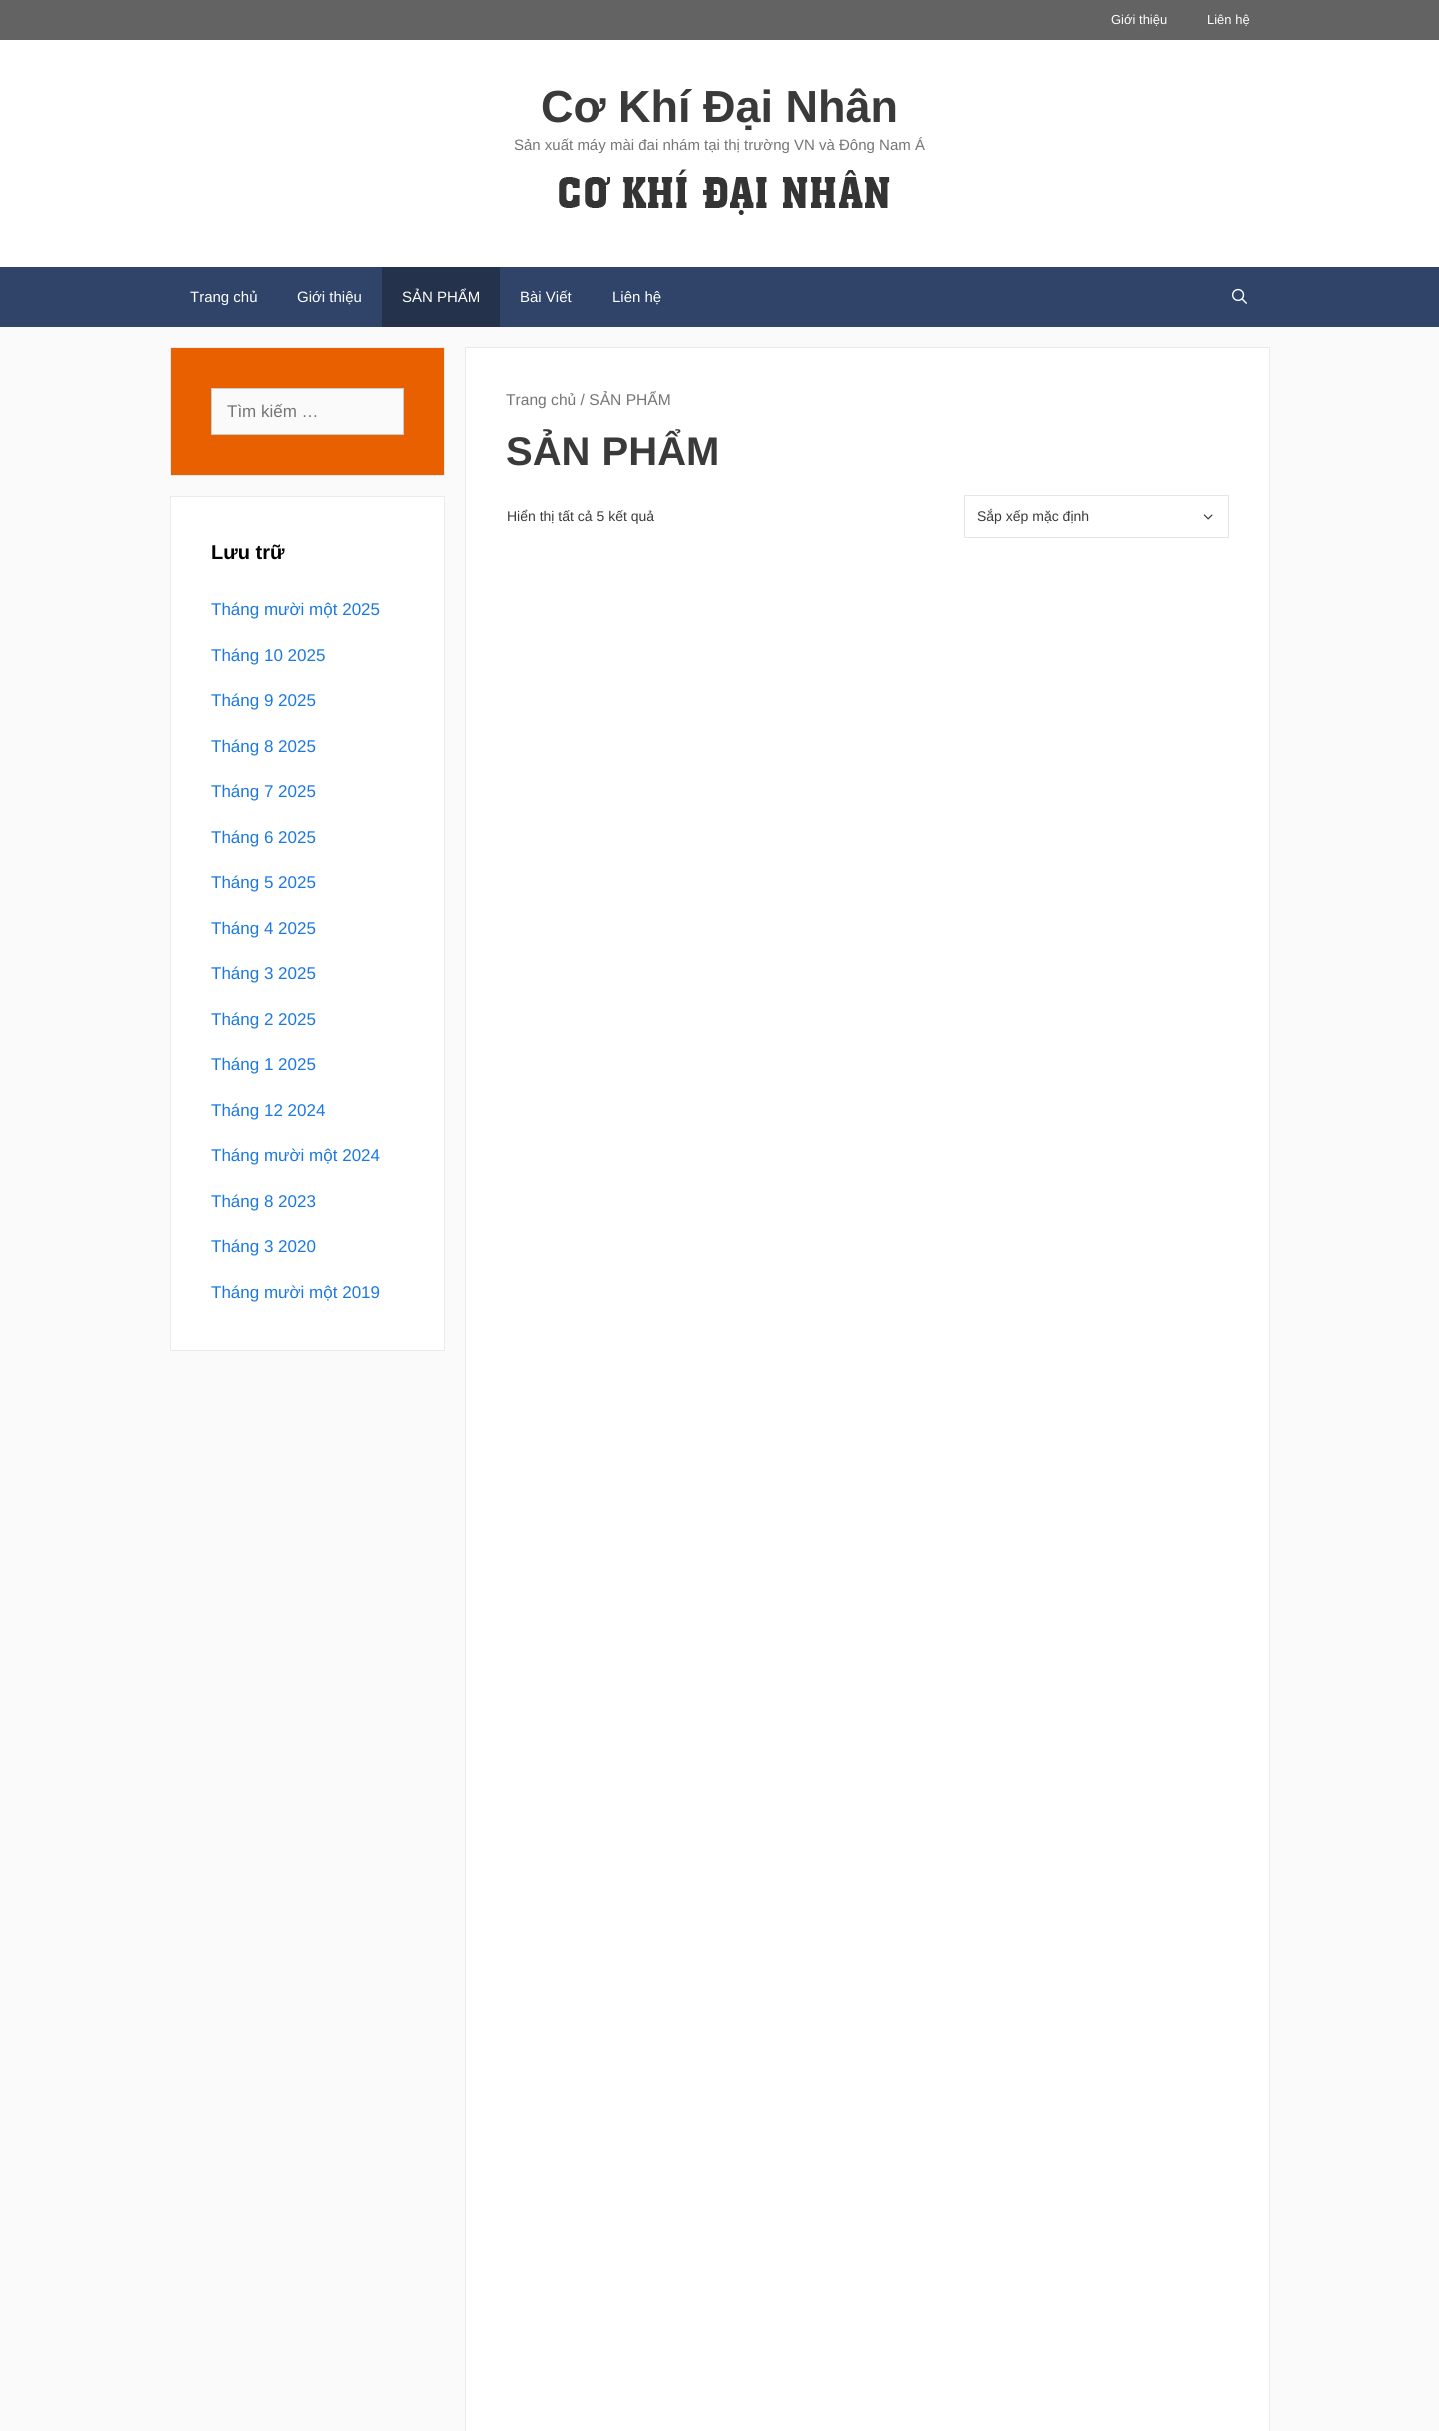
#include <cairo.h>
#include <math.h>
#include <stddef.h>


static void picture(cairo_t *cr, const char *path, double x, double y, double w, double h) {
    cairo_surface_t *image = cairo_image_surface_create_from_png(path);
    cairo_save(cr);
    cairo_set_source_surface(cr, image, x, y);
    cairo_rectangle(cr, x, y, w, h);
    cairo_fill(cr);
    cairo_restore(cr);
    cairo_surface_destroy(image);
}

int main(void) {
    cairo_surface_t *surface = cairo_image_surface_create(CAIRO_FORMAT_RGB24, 1439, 2431);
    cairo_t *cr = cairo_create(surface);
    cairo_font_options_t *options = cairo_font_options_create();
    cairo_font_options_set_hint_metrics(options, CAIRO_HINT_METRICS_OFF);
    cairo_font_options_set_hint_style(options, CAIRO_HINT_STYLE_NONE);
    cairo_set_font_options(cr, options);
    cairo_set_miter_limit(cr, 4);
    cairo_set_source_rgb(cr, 0.98, 0.98, 0.98);
    cairo_paint(cr);
    cairo_set_source_rgb(cr, 0.388, 0.388, 0.388);
    cairo_rectangle(cr, 0, 0, 1439, 40);
    cairo_fill(cr);
    cairo_select_font_face(cr, "Liberation Sans", CAIRO_FONT_SLANT_NORMAL, CAIRO_FONT_WEIGHT_NORMAL);
    cairo_set_font_size(cr, 13);
    cairo_set_source_rgb(cr, 1, 1, 1);
    cairo_move_to(cr, 1111, 24);
    cairo_show_text(cr, "Giới thiệu");
    cairo_move_to(cr, 1207, 24);
    cairo_show_text(cr, "Liên hệ");
    cairo_rectangle(cr, 0, 40, 1439, 227);
    cairo_fill(cr);
    cairo_select_font_face(cr, "Liberation Sans", CAIRO_FONT_SLANT_NORMAL, CAIRO_FONT_WEIGHT_BOLD);
    cairo_set_font_size(cr, 45);
    cairo_set_source_rgb(cr, 0.227, 0.227, 0.227);
    cairo_move_to(cr, 541, 122);
    cairo_show_text(cr, "Cơ Khí Đại Nhân");
    cairo_select_font_face(cr, "Liberation Sans", CAIRO_FONT_SLANT_NORMAL, CAIRO_FONT_WEIGHT_NORMAL);
    cairo_set_font_size(cr, 15);
    cairo_set_source_rgb(cr, 0.459, 0.459, 0.459);
    cairo_move_to(cr, 514, 150);
    cairo_show_text(cr, "Sản xuất máy mài đai nhám tại thị trường VN và Đông Nam Á");
    picture(cr, "img1.png", 559, 169, 331, 46);
    cairo_set_source_rgb(cr, 0.184, 0.267, 0.408);
    cairo_rectangle(cr, 0, 267, 1439, 60);
    cairo_fill(cr);
    cairo_set_source_rgb(cr, 1, 1, 1);
    cairo_move_to(cr, 190, 302);
    cairo_show_text(cr, "Trang chủ");
    cairo_move_to(cr, 297, 302);
    cairo_show_text(cr, "Giới thiệu");
    cairo_set_source_rgb(cr, 0.141, 0.196, 0.294);
    cairo_rectangle(cr, 382, 267, 118, 60);
    cairo_fill(cr);
    cairo_set_source_rgb(cr, 1, 1, 1);
    cairo_move_to(cr, 402, 302);
    cairo_show_text(cr, "SẢN PHẨM");
    cairo_move_to(cr, 520, 302);
    cairo_show_text(cr, "Bài Viết");
    cairo_move_to(cr, 612, 302);
    cairo_show_text(cr, "Liên hệ");
    picture(cr, "img2.png", 1232, 288, 15, 16);
    cairo_set_source_rgb(cr, 0.91, 0.376, 0);
    cairo_rectangle(cr, 170.5, 347.5, 274, 128);
    cairo_fill_preserve(cr);
    cairo_set_source_rgb(cr, 0.91, 0.918, 0.929);
    cairo_set_line_width(cr, 1);
    cairo_stroke(cr);
    cairo_set_source_rgb(cr, 0.98, 0.98, 0.98);
    cairo_rectangle(cr, 211.5, 388.5, 192, 46);
    cairo_fill_preserve(cr);
    cairo_set_source_rgb(cr, 0.8, 0.8, 0.8);
    cairo_stroke(cr);
    cairo_set_font_size(cr, 17);
    cairo_set_source_rgb(cr, 0.459, 0.459, 0.459);
    cairo_move_to(cr, 227, 417);
    cairo_show_text(cr, "Tìm kiếm …");
    cairo_set_source_rgb(cr, 1, 1, 1);
    cairo_rectangle(cr, 170.5, 496.5, 274, 854);
    cairo_fill_preserve(cr);
    cairo_set_source_rgb(cr, 0.91, 0.918, 0.929);
    cairo_stroke(cr);
    cairo_select_font_face(cr, "Liberation Sans", CAIRO_FONT_SLANT_NORMAL, CAIRO_FONT_WEIGHT_BOLD);
    cairo_set_font_size(cr, 20);
    cairo_set_source_rgb(cr, 0, 0, 0);
    cairo_move_to(cr, 211, 559);
    cairo_show_text(cr, "Lưu trữ");
    cairo_select_font_face(cr, "Liberation Sans", CAIRO_FONT_SLANT_NORMAL, CAIRO_FONT_WEIGHT_NORMAL);
    cairo_set_font_size(cr, 17);
    cairo_set_source_rgb(cr, 0.106, 0.471, 0.886);
    cairo_move_to(cr, 211, 615);
    cairo_show_text(cr, "Tháng mười một 2025");
    cairo_move_to(cr, 211, 661);
    cairo_show_text(cr, "Tháng 10 2025");
    cairo_move_to(cr, 211, 706);
    cairo_show_text(cr, "Tháng 9 2025");
    cairo_move_to(cr, 211, 752);
    cairo_show_text(cr, "Tháng 8 2025");
    cairo_move_to(cr, 211, 797);
    cairo_show_text(cr, "Tháng 7 2025");
    cairo_move_to(cr, 211, 843);
    cairo_show_text(cr, "Tháng 6 2025");
    cairo_move_to(cr, 211, 888);
    cairo_show_text(cr, "Tháng 5 2025");
    cairo_move_to(cr, 211, 934);
    cairo_show_text(cr, "Tháng 4 2025");
    cairo_move_to(cr, 211, 979);
    cairo_show_text(cr, "Tháng 3 2025");
    cairo_move_to(cr, 211, 1025);
    cairo_show_text(cr, "Tháng 2 2025");
    cairo_move_to(cr, 211, 1070);
    cairo_show_text(cr, "Tháng 1 2025");
    cairo_move_to(cr, 211, 1116);
    cairo_show_text(cr, "Tháng 12 2024");
    cairo_move_to(cr, 211, 1161);
    cairo_show_text(cr, "Tháng mười một 2024");
    cairo_move_to(cr, 211, 1207);
    cairo_show_text(cr, "Tháng 8 2023");
    cairo_move_to(cr, 211, 1252);
    cairo_show_text(cr, "Tháng 3 2020");
    cairo_move_to(cr, 211, 1298);
    cairo_show_text(cr, "Tháng mười một 2019");
    cairo_set_source_rgb(cr, 1, 1, 1);
    cairo_rectangle(cr, 465.5, 347.5, 804, 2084);
    cairo_fill_preserve(cr);
    cairo_set_source_rgb(cr, 0.91, 0.918, 0.929);
    cairo_stroke(cr);
    cairo_set_font_size(cr, 15.6);
    cairo_set_source_rgb(cr, 0.459, 0.459, 0.459);
    cairo_move_to(cr, 506, 405);
    cairo_show_text(cr, "Trang chủ / SẢN PHẨM");
    cairo_select_font_face(cr, "Liberation Sans", CAIRO_FONT_SLANT_NORMAL, CAIRO_FONT_WEIGHT_BOLD);
    cairo_set_font_size(cr, 40);
    cairo_set_source_rgb(cr, 0.227, 0.227, 0.227);
    cairo_move_to(cr, 506, 465);
    cairo_show_text(cr, "SẢN PHẨM");
    cairo_select_font_face(cr, "Liberation Sans", CAIRO_FONT_SLANT_NORMAL, CAIRO_FONT_WEIGHT_NORMAL);
    cairo_set_font_size(cr, 14);
    cairo_move_to(cr, 507, 521);
    cairo_show_text(cr, "Hiển thị tất cả 5 kết quả");
    cairo_rectangle(cr, 964.5, 495.5, 264, 42);
    cairo_set_source_rgb(cr, 0.902, 0.902, 0.902);
    cairo_stroke(cr);
    cairo_set_source_rgb(cr, 0.227, 0.227, 0.227);
    cairo_move_to(cr, 977, 521);
    cairo_show_text(cr, "Sắp xếp mặc định");
    picture(cr, "img3.png", 1203, 514, 10, 6);
    cairo_surface_write_to_png(surface, "page.png");
    cairo_font_options_destroy(options);
    cairo_destroy(cr);
    cairo_surface_destroy(surface);
    return 0;
}
